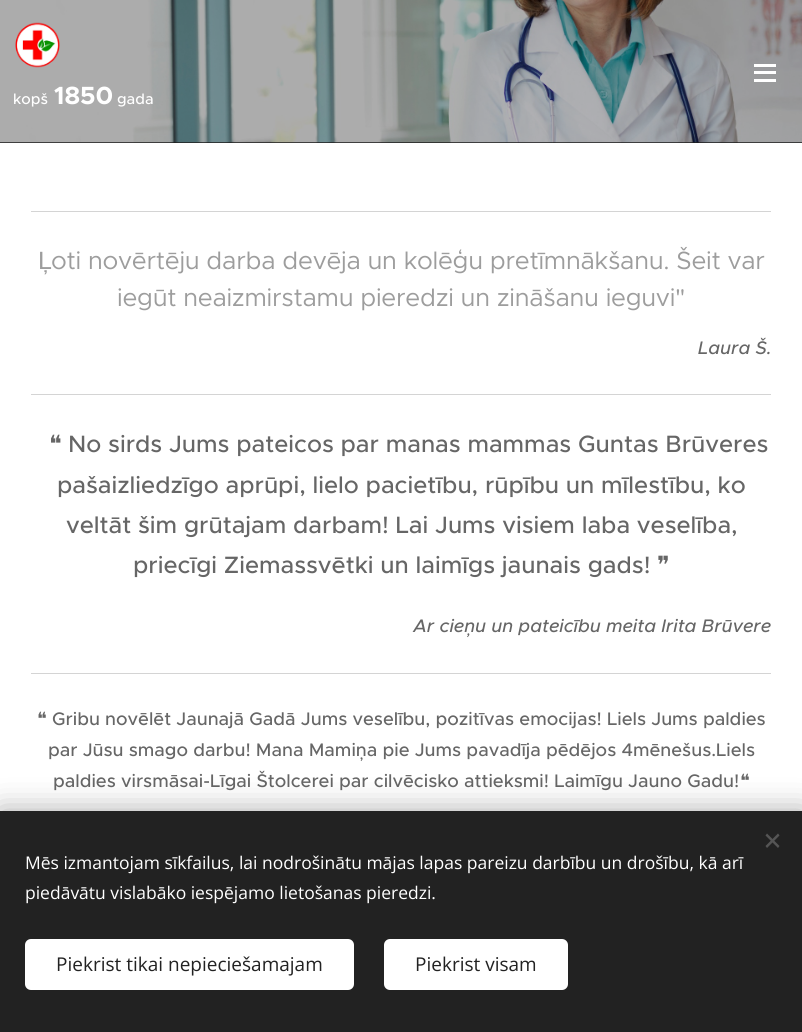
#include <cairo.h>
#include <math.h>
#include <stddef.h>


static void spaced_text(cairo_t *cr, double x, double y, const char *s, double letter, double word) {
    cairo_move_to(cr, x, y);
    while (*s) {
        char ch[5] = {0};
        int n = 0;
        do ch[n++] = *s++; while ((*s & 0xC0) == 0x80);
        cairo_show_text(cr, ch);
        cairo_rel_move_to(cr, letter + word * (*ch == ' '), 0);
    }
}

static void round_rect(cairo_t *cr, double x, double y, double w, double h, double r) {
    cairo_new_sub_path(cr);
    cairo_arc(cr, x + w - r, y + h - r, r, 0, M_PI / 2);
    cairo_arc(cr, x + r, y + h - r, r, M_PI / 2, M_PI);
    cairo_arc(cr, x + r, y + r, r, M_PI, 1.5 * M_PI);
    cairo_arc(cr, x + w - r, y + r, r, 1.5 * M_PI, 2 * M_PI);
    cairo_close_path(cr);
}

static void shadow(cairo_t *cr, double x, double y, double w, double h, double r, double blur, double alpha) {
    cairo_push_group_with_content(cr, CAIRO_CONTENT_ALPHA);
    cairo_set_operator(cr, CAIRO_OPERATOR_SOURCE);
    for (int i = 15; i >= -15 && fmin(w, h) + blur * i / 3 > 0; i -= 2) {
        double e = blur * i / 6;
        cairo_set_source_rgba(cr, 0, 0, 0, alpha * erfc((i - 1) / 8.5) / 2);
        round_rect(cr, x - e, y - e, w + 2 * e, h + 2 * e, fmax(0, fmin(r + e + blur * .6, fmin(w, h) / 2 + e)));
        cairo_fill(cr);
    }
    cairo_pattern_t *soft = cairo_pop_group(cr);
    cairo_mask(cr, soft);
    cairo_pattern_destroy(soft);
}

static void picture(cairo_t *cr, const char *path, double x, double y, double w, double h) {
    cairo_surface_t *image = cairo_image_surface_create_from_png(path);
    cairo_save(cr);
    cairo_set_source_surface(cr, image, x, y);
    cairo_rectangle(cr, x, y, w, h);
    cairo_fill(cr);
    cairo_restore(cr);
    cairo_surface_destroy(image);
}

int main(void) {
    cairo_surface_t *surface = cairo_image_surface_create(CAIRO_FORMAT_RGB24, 802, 1032);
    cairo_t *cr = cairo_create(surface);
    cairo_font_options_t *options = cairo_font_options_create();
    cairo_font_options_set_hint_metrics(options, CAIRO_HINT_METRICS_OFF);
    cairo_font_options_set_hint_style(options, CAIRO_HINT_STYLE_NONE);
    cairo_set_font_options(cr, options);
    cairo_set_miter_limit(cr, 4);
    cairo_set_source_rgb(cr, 1, 1, 1);
    cairo_paint(cr);
    cairo_set_source_rgb(cr, 0.106, 0.106, 0.106);
    cairo_rectangle(cr, 0, 142, 802, 1);
    cairo_fill(cr);
    picture(cr, "img1.png", 0, 0, 802, 143);
    cairo_set_source_rgb(cr, 1, 1, 1);
    cairo_rectangle(cr, 754, 71, 22, 3);
    cairo_fill(cr);
    cairo_rectangle(cr, 754, 64, 22, 3);
    cairo_fill(cr);
    cairo_rectangle(cr, 754, 79, 22, 3);
    cairo_fill(cr);
    picture(cr, "img2.png", 15, 22, 45, 46);
    cairo_select_font_face(cr, "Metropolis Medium", CAIRO_FONT_SLANT_NORMAL, CAIRO_FONT_WEIGHT_NORMAL);
    cairo_set_font_size(cr, 15);
    cairo_move_to(cr, 13, 104);
    cairo_show_text(cr, "kopš");
    cairo_select_font_face(cr, "Metropolis", CAIRO_FONT_SLANT_NORMAL, CAIRO_FONT_WEIGHT_BOLD);
    cairo_set_font_size(cr, 25);
    cairo_move_to(cr, 54, 104);
    cairo_show_text(cr, "1850");
    cairo_select_font_face(cr, "Metropolis Medium", CAIRO_FONT_SLANT_NORMAL, CAIRO_FONT_WEIGHT_NORMAL);
    cairo_set_font_size(cr, 15);
    cairo_move_to(cr, 117, 104);
    cairo_show_text(cr, "gada");
    cairo_set_source_rgb(cr, 0.831, 0.831, 0.831);
    cairo_rectangle(cr, 31, 211, 740, 1);
    cairo_fill(cr);
    cairo_select_font_face(cr, "Liberation Sans", CAIRO_FONT_SLANT_NORMAL, CAIRO_FONT_WEIGHT_NORMAL);
    cairo_set_font_size(cr, 25);
    cairo_set_source_rgb(cr, 0.616, 0.616, 0.616);
    spaced_text(cr, 38, 269, "Ļ", -0.25, 0);
    cairo_select_font_face(cr, "Metropolis", CAIRO_FONT_SLANT_NORMAL, CAIRO_FONT_WEIGHT_NORMAL);
    spaced_text(cr, 51, 269, "oti novērtēju darba devēja un kolēģu pretīmnākšanu. Šeit var", -0.25, 0);
    spaced_text(cr, 117, 306, "iegūt neaizmirstamu pieredzi un zināšanu ieguvi\"", -0.25, 0);
    cairo_select_font_face(cr, "Metropolis Medium", CAIRO_FONT_SLANT_ITALIC, CAIRO_FONT_WEIGHT_NORMAL);
    cairo_set_font_size(cr, 18.25);
    cairo_set_source_rgb(cr, 0.4, 0.4, 0.4);
    cairo_move_to(cr, 698, 354);
    cairo_show_text(cr, "Laura Š.");
    cairo_set_source_rgb(cr, 0.831, 0.831, 0.831);
    cairo_rectangle(cr, 31, 394, 740, 1);
    cairo_fill(cr);
    cairo_select_font_face(cr, "DejaVu Sans", CAIRO_FONT_SLANT_NORMAL, CAIRO_FONT_WEIGHT_NORMAL);
    cairo_set_font_size(cr, 23.75);
    cairo_set_source_rgb(cr, 0.4, 0.4, 0.4);
    cairo_move_to(cr, 49, 452);
    cairo_show_text(cr, "❝");
    cairo_select_font_face(cr, "Metropolis Medium", CAIRO_FONT_SLANT_NORMAL, CAIRO_FONT_WEIGHT_NORMAL);
    cairo_move_to(cr, 68, 452);
    cairo_show_text(cr, "No sirds Jums pateicos par manas mammas Guntas Brūveres");
    cairo_move_to(cr, 57, 493);
    cairo_show_text(cr, "pašaizliedzīgo aprūpi, lielo pacietību, rūpību un mīlestību, ko");
    cairo_move_to(cr, 66, 533);
    cairo_show_text(cr, "veltāt šim grūtajam darbam! Lai Jums visiem laba veselība,");
    cairo_move_to(cr, 133, 573);
    cairo_show_text(cr, "priecīgi Ziemassvētki un laimīgs jaunais gads!");
    cairo_select_font_face(cr, "DejaVu Sans", CAIRO_FONT_SLANT_NORMAL, CAIRO_FONT_WEIGHT_NORMAL);
    cairo_move_to(cr, 657, 573);
    cairo_show_text(cr, "❞");
    cairo_select_font_face(cr, "Metropolis Medium", CAIRO_FONT_SLANT_ITALIC, CAIRO_FONT_WEIGHT_NORMAL);
    cairo_set_font_size(cr, 18.25);
    cairo_move_to(cr, 413, 632);
    cairo_show_text(cr, "Ar cieņu un pateicību meita Irita Brūvere");
    cairo_set_source_rgb(cr, 0.831, 0.831, 0.831);
    cairo_rectangle(cr, 31, 673, 740, 1);
    cairo_fill(cr);
    cairo_select_font_face(cr, "DejaVu Sans", CAIRO_FONT_SLANT_NORMAL, CAIRO_FONT_WEIGHT_NORMAL);
    cairo_set_source_rgb(cr, 0.4, 0.4, 0.4);
    cairo_move_to(cr, 37, 725);
    cairo_show_text(cr, "❝");
    cairo_select_font_face(cr, "Metropolis Medium", CAIRO_FONT_SLANT_NORMAL, CAIRO_FONT_WEIGHT_NORMAL);
    cairo_move_to(cr, 52, 725);
    cairo_show_text(cr, "Gribu novēlēt Jaunajā Gadā Jums veselību, pozitīvas emocijas! Liels Jums paldies");
    cairo_move_to(cr, 48, 756);
    cairo_show_text(cr, "par Jūsu smago darbu! Mana Mamiņa pie Jums pavadīja pēdējos 4mēnešus.Liels");
    cairo_move_to(cr, 53, 787);
    cairo_show_text(cr, "paldies virsmāsai-Līgai Štolcerei par cilvēcisko attieksmi! Laimīgu Jauno Gadu!");
    cairo_select_font_face(cr, "DejaVu Sans", CAIRO_FONT_SLANT_NORMAL, CAIRO_FONT_WEIGHT_NORMAL);
    cairo_move_to(cr, 740, 787);
    cairo_show_text(cr, "❝");
    cairo_set_source_rgb(cr, 0, 0, 0);
    shadow(cr, 0, 811, 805, 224, 0, 15.5, 0.33);
    cairo_set_source_rgb(cr, 0.133, 0.133, 0.133);
    cairo_rectangle(cr, 0, 811, 802, 221);
    cairo_fill(cr);
    cairo_set_source_rgb(cr, 0.333, 0.333, 0.333);
    cairo_new_path(cr);
    cairo_move_to(cr, 765.5, 846);
    cairo_line_to(cr, 778, 833.5);
    cairo_line_to(cr, 779.5, 835.5);
    cairo_line_to(cr, 767, 848);
    cairo_close_path(cr);
    cairo_fill(cr);
    cairo_new_path(cr);
    cairo_move_to(cr, 767, 833.5);
    cairo_line_to(cr, 779.5, 846);
    cairo_line_to(cr, 778, 848);
    cairo_line_to(cr, 765.5, 835.5);
    cairo_close_path(cr);
    cairo_fill(cr);
    cairo_select_font_face(cr, "Open Sans", CAIRO_FONT_SLANT_NORMAL, CAIRO_FONT_WEIGHT_NORMAL);
    cairo_set_font_size(cr, 17.5);
    cairo_set_source_rgb(cr, 1, 1, 1);
    cairo_move_to(cr, 25, 869);
    cairo_show_text(cr, "Mēs izmantojam sīkfailus, lai nodrošinātu mājas lapas pareizu darbību un drošību, kā arī");
    cairo_move_to(cr, 25, 899);
    cairo_show_text(cr, "piedāvātu vislabāko iespējamo lietošanas pieredzi.");
    round_rect(cr, 25, 939, 329, 51, 6);
    cairo_fill(cr);
    cairo_set_font_size(cr, 19);
    cairo_set_source_rgb(cr, 0.133, 0.133, 0.133);
    cairo_move_to(cr, 56, 971);
    cairo_show_text(cr, "Piekrist tikai nepieciešamajam");
    cairo_set_source_rgb(cr, 1, 1, 1);
    round_rect(cr, 384, 939, 184, 51, 6);
    cairo_fill(cr);
    cairo_set_source_rgb(cr, 0.133, 0.133, 0.133);
    cairo_move_to(cr, 415, 971);
    cairo_show_text(cr, "Piekrist visam");
    cairo_surface_write_to_png(surface, "page.png");
    cairo_font_options_destroy(options);
    cairo_destroy(cr);
    cairo_surface_destroy(surface);
    return 0;
}
